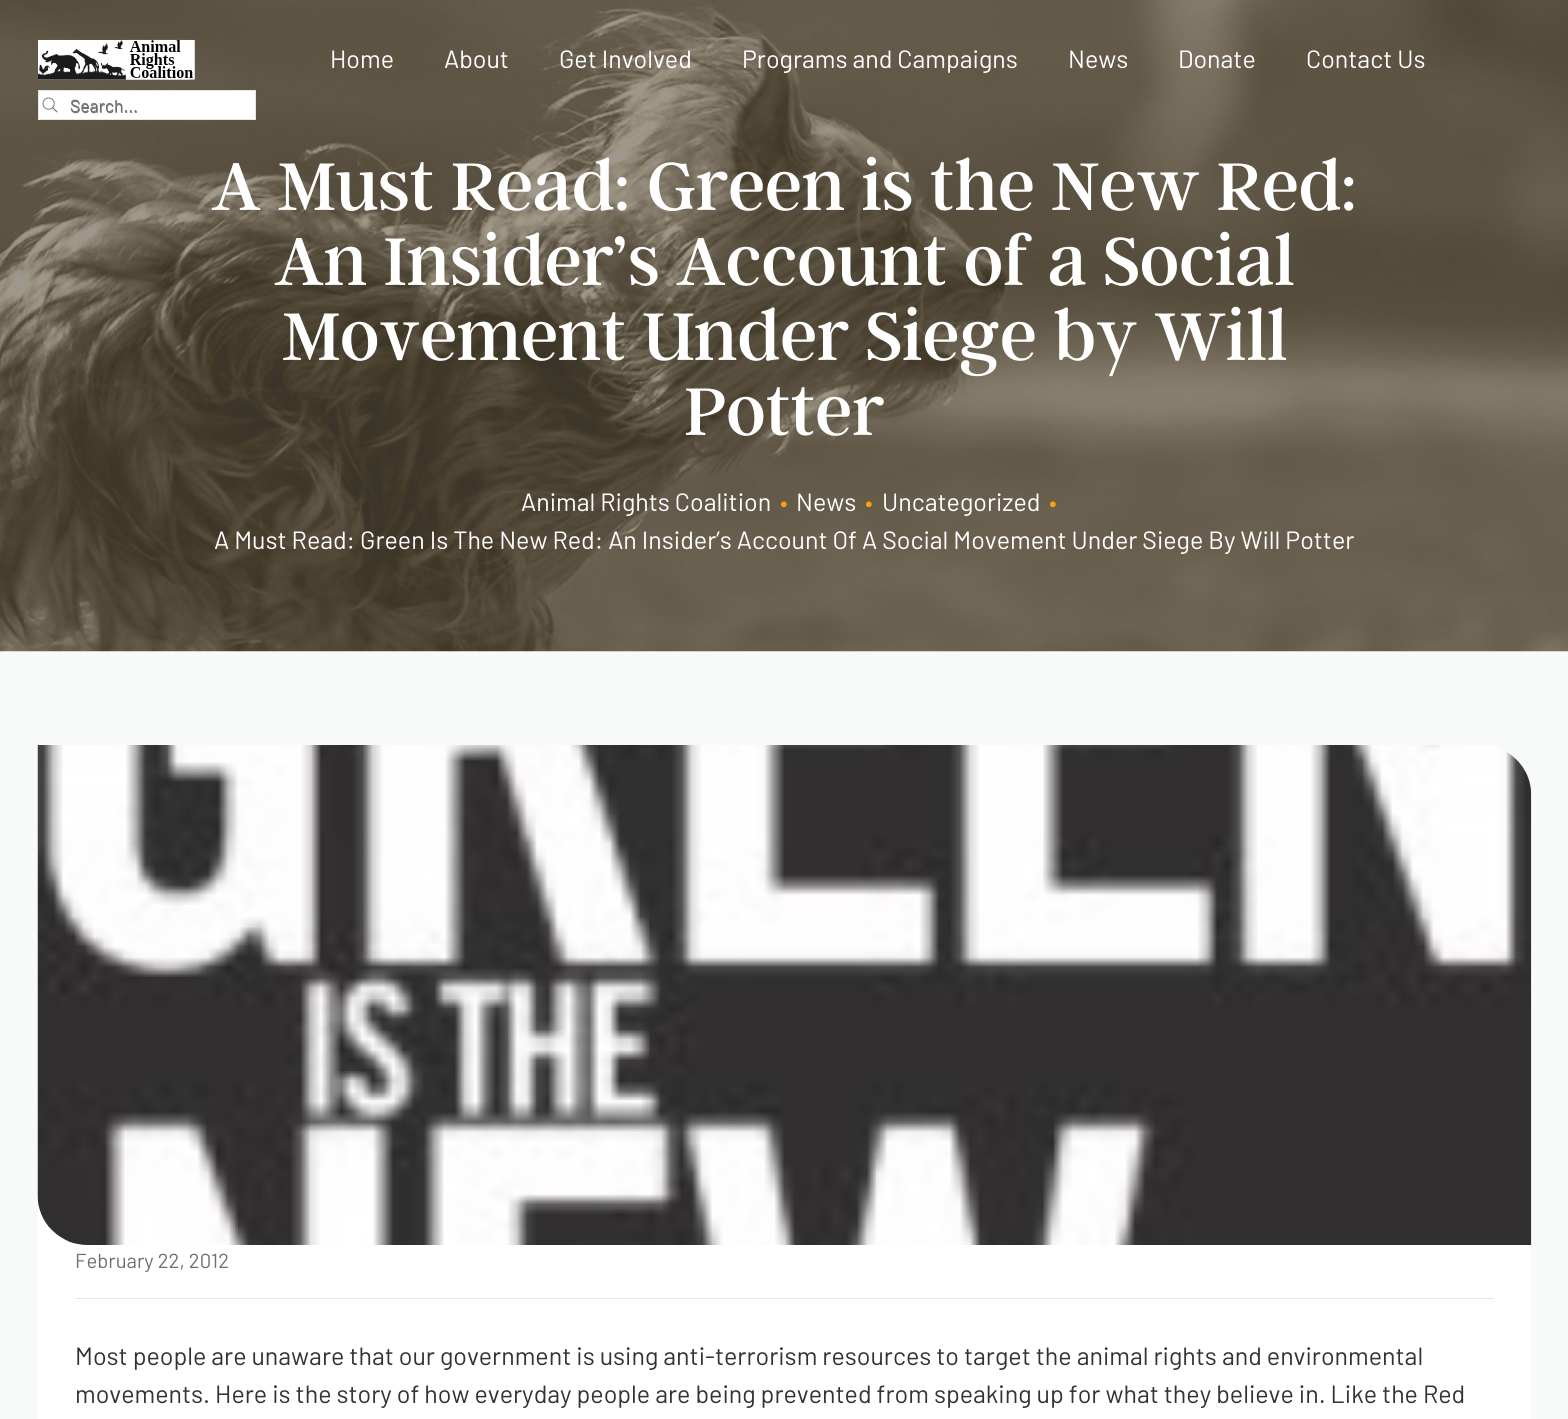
#include <cairo.h>
#include <math.h>
#include <stddef.h>


static void picture(cairo_t *cr, const char *path, double x, double y, double w, double h) {
    cairo_surface_t *image = cairo_image_surface_create_from_png(path);
    cairo_save(cr);
    cairo_set_source_surface(cr, image, x, y);
    cairo_rectangle(cr, x, y, w, h);
    cairo_fill(cr);
    cairo_restore(cr);
    cairo_surface_destroy(image);
}

int main(void) {
    cairo_surface_t *surface = cairo_image_surface_create(CAIRO_FORMAT_RGB24, 1568, 1419);
    cairo_t *cr = cairo_create(surface);
    cairo_font_options_t *options = cairo_font_options_create();
    cairo_font_options_set_hint_metrics(options, CAIRO_HINT_METRICS_OFF);
    cairo_font_options_set_hint_style(options, CAIRO_HINT_STYLE_NONE);
    cairo_set_font_options(cr, options);
    cairo_set_miter_limit(cr, 4);
    cairo_set_source_rgb(cr, 0.969, 0.973, 0.976);
    cairo_paint(cr);
    picture(cr, "img3.png", 0, 0, 1568, 652);
    cairo_set_source_rgb(cr, 1, 1, 1);
    cairo_rectangle(cr, 38.5, 90.5, 217, 29);
    cairo_fill_preserve(cr);
    cairo_set_source_rgb(cr, 0.898, 0.898, 0.898);
    cairo_set_line_width(cr, 1);
    cairo_stroke(cr);
    picture(cr, "img2.png", 42, 97, 16, 16);
    cairo_select_font_face(cr, "Barlow", CAIRO_FONT_SLANT_NORMAL, CAIRO_FONT_WEIGHT_NORMAL);
    cairo_set_font_size(cr, 17.5);
    cairo_set_source_rgb(cr, 0.439, 0.439, 0.439);
    cairo_move_to(cr, 70, 112);
    cairo_show_text(cr, "Search...");
    picture(cr, "img1.png", 38, 39, 157, 75);
    cairo_set_font_size(cr, 25);
    cairo_set_source_rgb(cr, 1, 1, 1);
    cairo_move_to(cr, 330, 68);
    cairo_show_text(cr, "Home");
    cairo_move_to(cr, 444, 68);
    cairo_show_text(cr, "About");
    cairo_move_to(cr, 559, 68);
    cairo_show_text(cr, "Get Involved");
    cairo_move_to(cr, 742, 68);
    cairo_show_text(cr, "Programs and Campaigns");
    cairo_move_to(cr, 1068, 68);
    cairo_show_text(cr, "News");
    cairo_move_to(cr, 1178, 68);
    cairo_show_text(cr, "Donate");
    cairo_move_to(cr, 1306, 68);
    cairo_show_text(cr, "Contact Us");
    cairo_select_font_face(cr, "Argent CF", CAIRO_FONT_SLANT_NORMAL, CAIRO_FONT_WEIGHT_NORMAL);
    cairo_set_font_size(cr, 75);
    cairo_move_to(cr, 211, 210);
    cairo_show_text(cr, "A Must Read: Green is the New Red:");
    cairo_move_to(cr, 274, 285);
    cairo_show_text(cr, "An Insider’s Account of a Social");
    cairo_move_to(cr, 282, 360);
    cairo_show_text(cr, "Movement Under Siege by Will");
    cairo_move_to(cr, 684, 435);
    cairo_show_text(cr, "Potter");
    cairo_select_font_face(cr, "Barlow", CAIRO_FONT_SLANT_NORMAL, CAIRO_FONT_WEIGHT_NORMAL);
    cairo_set_font_size(cr, 25);
    cairo_move_to(cr, 521, 511);
    cairo_show_text(cr, "Animal Rights Coalition");
    cairo_set_source_rgb(cr, 1, 0.624, 0.051);
    cairo_move_to(cr, 780, 511);
    cairo_show_text(cr, "•");
    cairo_set_source_rgb(cr, 1, 1, 1);
    cairo_move_to(cr, 796, 511);
    cairo_show_text(cr, "News");
    cairo_set_source_rgb(cr, 1, 0.624, 0.051);
    cairo_move_to(cr, 865, 511);
    cairo_show_text(cr, "•");
    cairo_set_source_rgb(cr, 1, 1, 1);
    cairo_move_to(cr, 882, 511);
    cairo_show_text(cr, "Uncategorized");
    cairo_set_source_rgb(cr, 1, 0.624, 0.051);
    cairo_move_to(cr, 1049, 511);
    cairo_show_text(cr, "•");
    cairo_set_source_rgb(cr, 1, 1, 1);
    cairo_move_to(cr, 214, 549);
    cairo_show_text(cr, "A Must Read: Green Is The New Red: An Insider’s Account Of A Social Movement Under Siege By Will Potter");
    cairo_new_path(cr);
    cairo_move_to(cr, 38, 745);
    cairo_line_to(cr, 1481, 745);
    cairo_curve_to(cr, 1508.5, 745, 1531, 767.5, 1531, 795);
    cairo_line_to(cr, 1531, 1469);
    cairo_line_to(cr, 88, 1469);
    cairo_curve_to(cr, 60.5, 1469, 38, 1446.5, 38, 1419);
    cairo_close_path(cr);
    cairo_fill(cr);
    picture(cr, "img4.png", 37, 745, 1495, 500);
    cairo_set_source_rgb(cr, 0.898, 0.898, 0.898);
    cairo_rectangle(cr, 75, 1298, 1419, 1);
    cairo_fill(cr);
    cairo_set_font_size(cr, 20.25);
    cairo_set_source_rgb(cr, 0.439, 0.439, 0.439);
    cairo_move_to(cr, 75, 1268);
    cairo_show_text(cr, "February 22, 2012");
    cairo_set_font_size(cr, 25);
    cairo_set_source_rgb(cr, 0.2, 0.2, 0.2);
    cairo_move_to(cr, 75, 1365);
    cairo_show_text(cr, "Most people are unaware that our government is using anti-terrorism resources to target the animal rights and environmental");
    cairo_move_to(cr, 75, 1403);
    cairo_show_text(cr, "movements. Here is the story of how everyday people are being prevented from speaking up for what they believe in. Like the Red");
    cairo_surface_write_to_png(surface, "page.png");
    cairo_font_options_destroy(options);
    cairo_destroy(cr);
    cairo_surface_destroy(surface);
    return 0;
}
